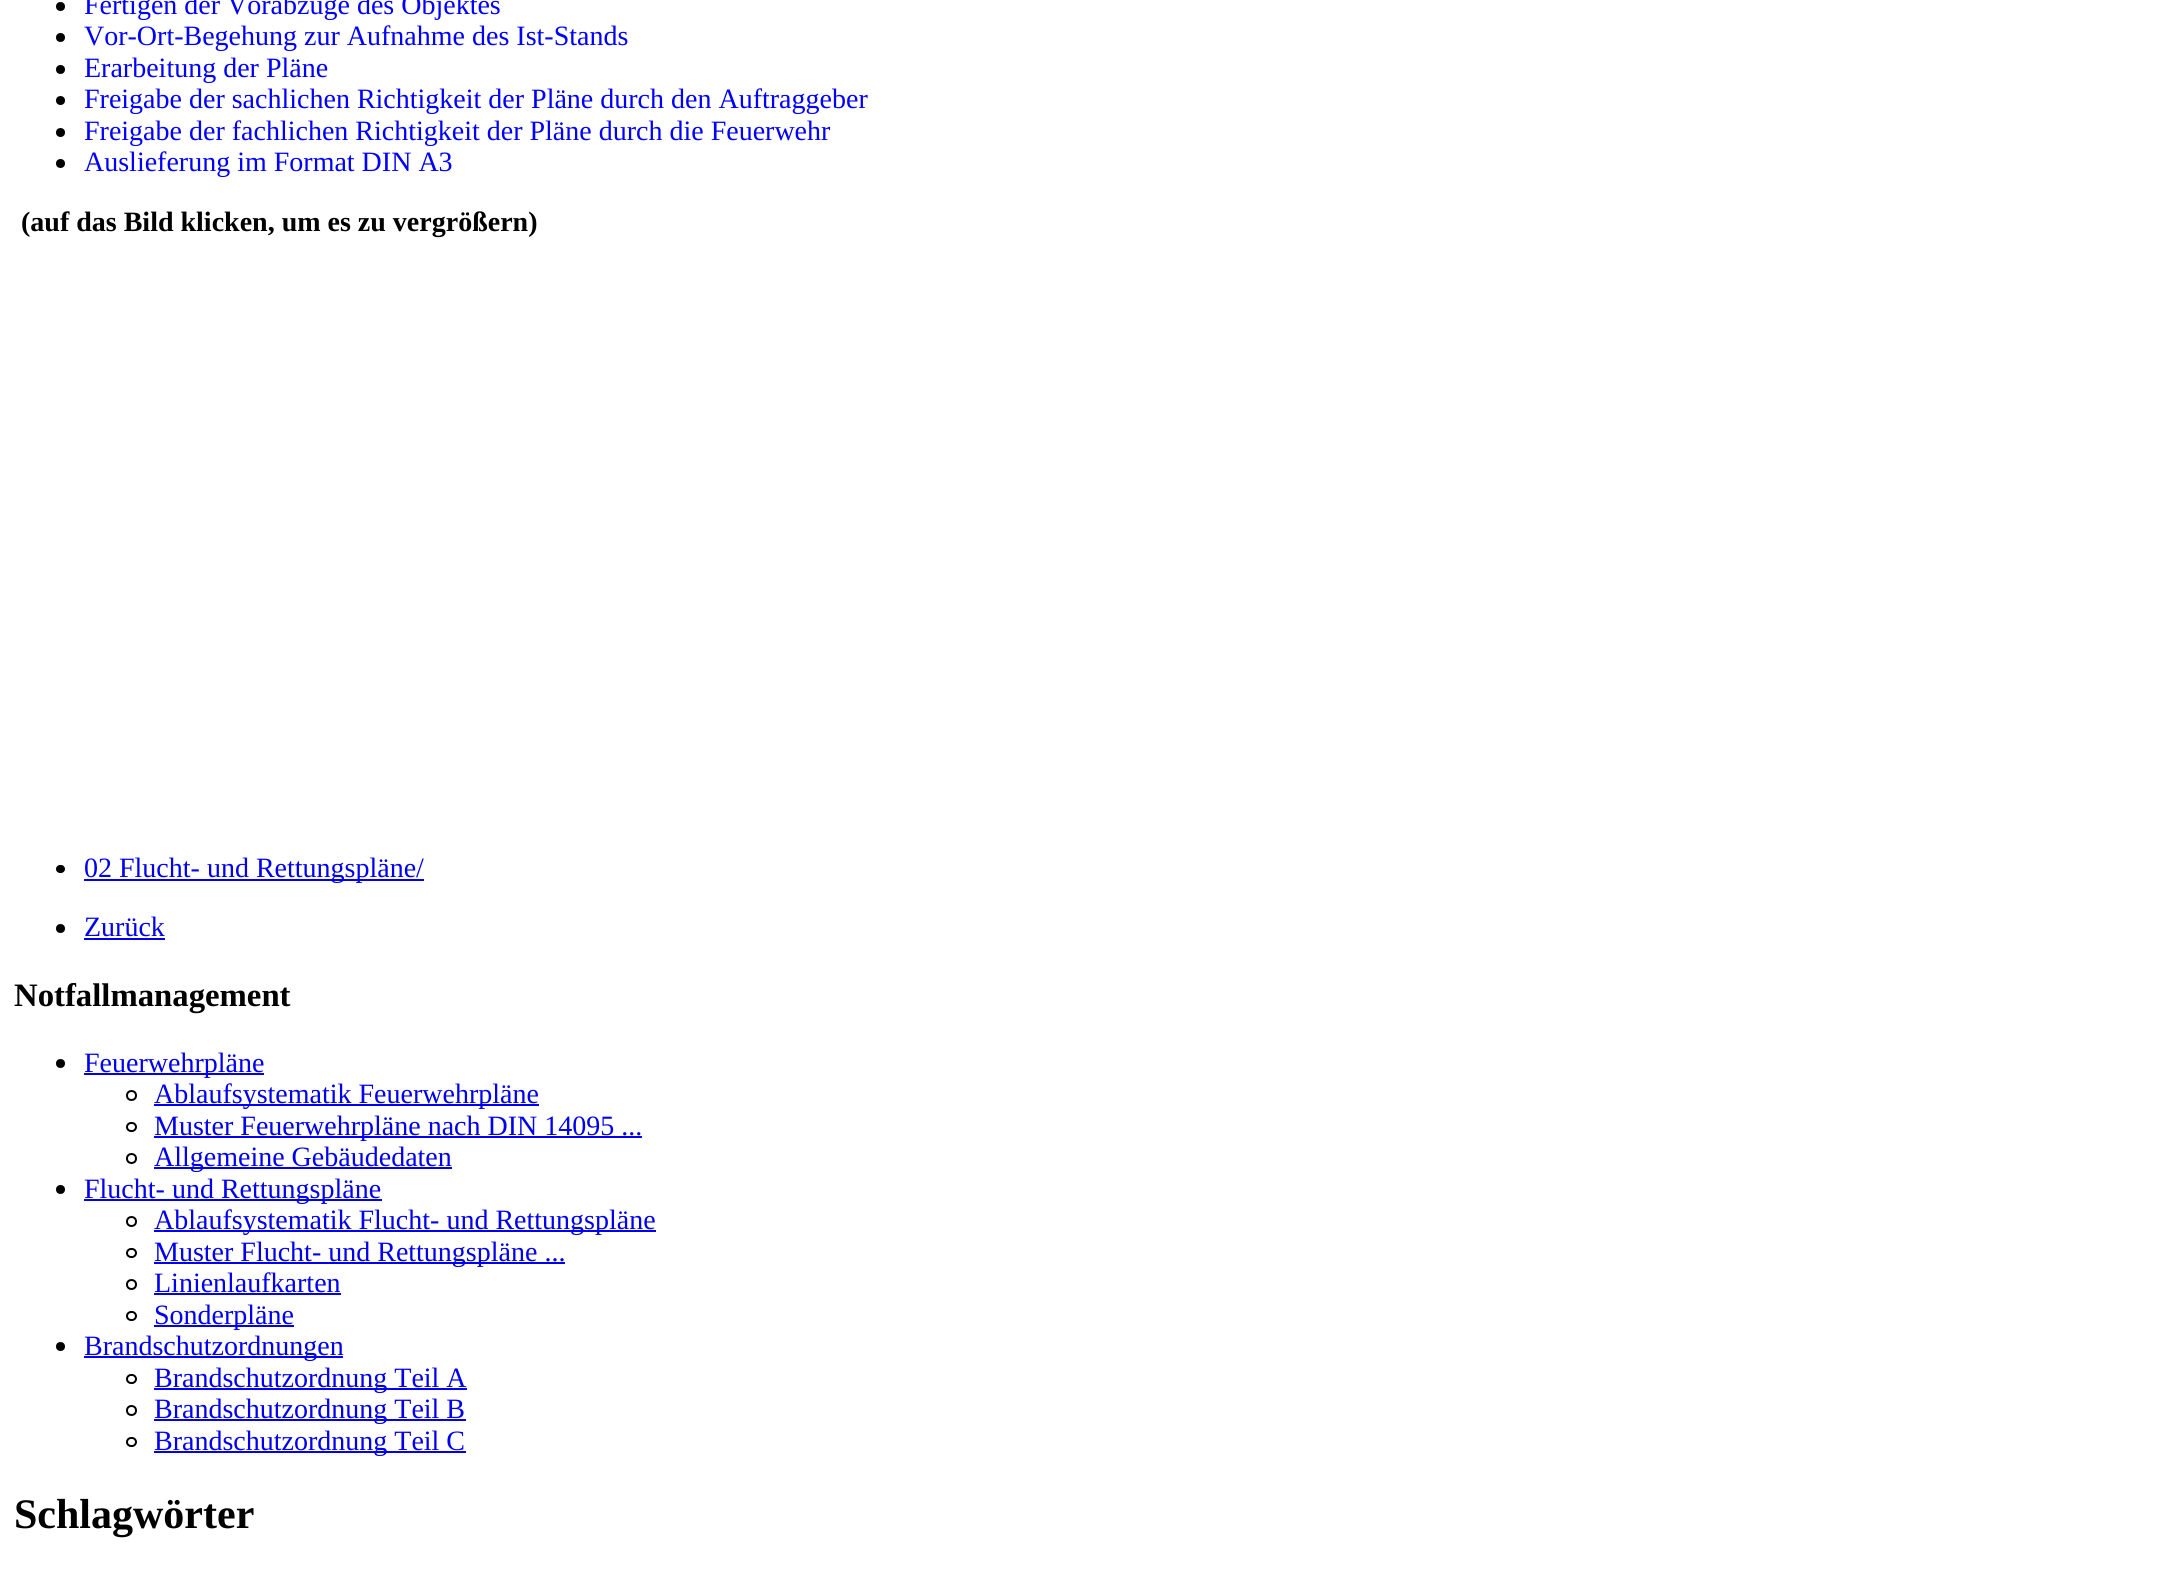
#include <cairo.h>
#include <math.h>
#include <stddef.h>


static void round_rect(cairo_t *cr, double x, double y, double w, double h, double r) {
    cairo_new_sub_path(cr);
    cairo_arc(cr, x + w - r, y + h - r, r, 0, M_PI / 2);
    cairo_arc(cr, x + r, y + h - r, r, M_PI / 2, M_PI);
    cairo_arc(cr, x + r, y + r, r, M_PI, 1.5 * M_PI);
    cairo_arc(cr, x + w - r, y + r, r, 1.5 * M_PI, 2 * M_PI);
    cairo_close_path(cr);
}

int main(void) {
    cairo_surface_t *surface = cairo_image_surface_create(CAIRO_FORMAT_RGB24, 2174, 1589);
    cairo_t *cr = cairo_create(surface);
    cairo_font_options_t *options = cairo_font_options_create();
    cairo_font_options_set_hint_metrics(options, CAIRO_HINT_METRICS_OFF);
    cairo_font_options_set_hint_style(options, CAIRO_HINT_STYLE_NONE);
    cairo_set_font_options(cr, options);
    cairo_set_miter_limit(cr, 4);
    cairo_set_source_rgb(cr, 1, 1, 1);
    cairo_paint(cr);
    cairo_set_source_rgb(cr, 0, 0, 0);
    cairo_arc(cr, 60.5, 6.5, 4.5, 0, 2 * M_PI);
    cairo_fill(cr);
    cairo_select_font_face(cr, "Liberation Serif", CAIRO_FONT_SLANT_NORMAL, CAIRO_FONT_WEIGHT_NORMAL);
    cairo_set_font_size(cr, 28);
    cairo_set_source_rgb(cr, 0, 0, 1);
    cairo_move_to(cr, 84, 14);
    cairo_show_text(cr, "Fertigen der Vorabzüge des Objektes");
    cairo_set_source_rgb(cr, 0, 0, 0);
    cairo_new_path(cr);
    cairo_arc(cr, 60.5, 37.5, 4.5, 0, 2 * M_PI);
    cairo_fill(cr);
    cairo_set_source_rgb(cr, 0, 0, 1);
    cairo_move_to(cr, 84, 45);
    cairo_show_text(cr, "Vor-Ort-Begehung zur Aufnahme des Ist-Stands");
    cairo_set_source_rgb(cr, 0, 0, 0);
    cairo_new_path(cr);
    cairo_arc(cr, 60.5, 69.5, 4.5, 0, 2 * M_PI);
    cairo_fill(cr);
    cairo_set_source_rgb(cr, 0, 0, 1);
    cairo_move_to(cr, 84, 77);
    cairo_show_text(cr, "Erarbeitung der Pläne");
    cairo_set_source_rgb(cr, 0, 0, 0);
    cairo_new_path(cr);
    cairo_arc(cr, 60.5, 100.5, 4.5, 0, 2 * M_PI);
    cairo_fill(cr);
    cairo_set_source_rgb(cr, 0, 0, 1);
    cairo_move_to(cr, 84, 108);
    cairo_show_text(cr, "Freigabe der sachlichen Richtigkeit der Pläne durch den Auftraggeber");
    cairo_set_source_rgb(cr, 0, 0, 0);
    cairo_new_path(cr);
    cairo_arc(cr, 60.5, 132.5, 4.5, 0, 2 * M_PI);
    cairo_fill(cr);
    cairo_set_source_rgb(cr, 0, 0, 1);
    cairo_move_to(cr, 84, 140);
    cairo_show_text(cr, "Freigabe der fachlichen Richtigkeit der Pläne durch die Feuerwehr");
    cairo_set_source_rgb(cr, 0, 0, 0);
    cairo_new_path(cr);
    cairo_arc(cr, 60.5, 163.5, 4.5, 0, 2 * M_PI);
    cairo_fill(cr);
    cairo_set_source_rgb(cr, 0, 0, 1);
    cairo_move_to(cr, 84, 171);
    cairo_show_text(cr, "Auslieferung im Format DIN A3");
    cairo_select_font_face(cr, "Liberation Serif", CAIRO_FONT_SLANT_NORMAL, CAIRO_FONT_WEIGHT_BOLD);
    cairo_set_source_rgb(cr, 0, 0, 0);
    cairo_move_to(cr, 21, 231);
    cairo_show_text(cr, "(auf das Bild klicken, um es zu vergrößern)");
    round_rect(cr, 56, 865, 9, 8, 4);
    cairo_fill(cr);
    cairo_set_source_rgb(cr, 0, 0, 0.933);
    cairo_rectangle(cr, 84, 879, 340, 2);
    cairo_fill(cr);
    cairo_select_font_face(cr, "Liberation Serif", CAIRO_FONT_SLANT_NORMAL, CAIRO_FONT_WEIGHT_NORMAL);
    cairo_move_to(cr, 84, 877);
    cairo_show_text(cr, "02 Flucht- und Rettungspläne/");
    cairo_set_source_rgb(cr, 0, 0, 0);
    cairo_new_path(cr);
    cairo_arc(cr, 60.5, 928.5, 4.5, 0, 2 * M_PI);
    cairo_fill(cr);
    cairo_set_source_rgb(cr, 0, 0, 0.933);
    cairo_move_to(cr, 84, 936);
    cairo_show_text(cr, "Zurück");
    cairo_rectangle(cr, 84, 938, 81, 2);
    cairo_fill(cr);
    cairo_select_font_face(cr, "Liberation Serif", CAIRO_FONT_SLANT_NORMAL, CAIRO_FONT_WEIGHT_BOLD);
    cairo_set_font_size(cr, 32.75);
    cairo_set_source_rgb(cr, 0, 0, 0);
    cairo_move_to(cr, 14, 1006);
    cairo_show_text(cr, "Notfallmanagement");
    cairo_new_path(cr);
    cairo_arc(cr, 60.5, 1063.5, 4.5, 0, 2 * M_PI);
    cairo_fill(cr);
    cairo_set_source_rgb(cr, 0, 0, 0.933);
    cairo_rectangle(cr, 84, 1073, 180, 2);
    cairo_fill(cr);
    cairo_select_font_face(cr, "Liberation Serif", CAIRO_FONT_SLANT_NORMAL, CAIRO_FONT_WEIGHT_NORMAL);
    cairo_set_font_size(cr, 28);
    cairo_move_to(cr, 84, 1072);
    cairo_show_text(cr, "Feuerwehrpläne");
    cairo_new_path(cr);
    cairo_arc(cr, 131.5, 1095.5, 4.5, 0, 2 * M_PI);
    cairo_set_source_rgb(cr, 0, 0, 0);
    cairo_stroke(cr);
    cairo_set_source_rgb(cr, 0, 0, 0.933);
    cairo_rectangle(cr, 154, 1104, 385, 2);
    cairo_fill(cr);
    cairo_move_to(cr, 154, 1103);
    cairo_show_text(cr, "Ablaufsystematik Feuerwehrpläne");
    round_rect(cr, 127, 1123, 9, 8, 4);
    cairo_set_source_rgb(cr, 0, 0, 0);
    cairo_stroke(cr);
    cairo_set_source_rgb(cr, 0, 0, 0.933);
    cairo_rectangle(cr, 154, 1136, 488, 2);
    cairo_fill(cr);
    cairo_move_to(cr, 154, 1135);
    cairo_show_text(cr, "Muster Feuerwehrpläne nach DIN 14095 ...");
    cairo_new_path(cr);
    cairo_arc(cr, 131.5, 1158.5, 4.5, 0, 2 * M_PI);
    cairo_set_source_rgb(cr, 0, 0, 0);
    cairo_stroke(cr);
    cairo_set_source_rgb(cr, 0, 0, 0.933);
    cairo_rectangle(cr, 154, 1167, 298, 2);
    cairo_fill(cr);
    cairo_move_to(cr, 154, 1166);
    cairo_show_text(cr, "Allgemeine Gebäudedaten");
    cairo_set_source_rgb(cr, 0, 0, 0);
    cairo_new_path(cr);
    cairo_arc(cr, 60.5, 1189.5, 4.5, 0, 2 * M_PI);
    cairo_fill(cr);
    cairo_set_source_rgb(cr, 0, 0, 0.933);
    cairo_rectangle(cr, 84, 1199, 298, 2);
    cairo_fill(cr);
    cairo_move_to(cr, 84, 1198);
    cairo_show_text(cr, "Flucht- und Rettungspläne");
    cairo_new_path(cr);
    cairo_arc(cr, 131.5, 1221.5, 4.5, 0, 2 * M_PI);
    cairo_set_source_rgb(cr, 0, 0, 0);
    cairo_stroke(cr);
    cairo_set_source_rgb(cr, 0, 0, 0.933);
    cairo_rectangle(cr, 154, 1230, 502, 2);
    cairo_fill(cr);
    cairo_move_to(cr, 154, 1229);
    cairo_show_text(cr, "Ablaufsystematik Flucht- und Rettungspläne");
    round_rect(cr, 127, 1249, 9, 8, 4);
    cairo_set_source_rgb(cr, 0, 0, 0);
    cairo_stroke(cr);
    cairo_set_source_rgb(cr, 0, 0, 0.933);
    cairo_rectangle(cr, 154, 1262, 411, 2);
    cairo_fill(cr);
    cairo_move_to(cr, 154, 1261);
    cairo_show_text(cr, "Muster Flucht- und Rettungspläne ...");
    cairo_new_path(cr);
    cairo_arc(cr, 131.5, 1284.5, 4.5, 0, 2 * M_PI);
    cairo_set_source_rgb(cr, 0, 0, 0);
    cairo_stroke(cr);
    cairo_set_source_rgb(cr, 0, 0, 0.933);
    cairo_move_to(cr, 154, 1292);
    cairo_show_text(cr, "Linienlaufkarten");
    cairo_rectangle(cr, 154, 1293, 187, 2);
    cairo_fill(cr);
    round_rect(cr, 127, 1312, 9, 8, 4);
    cairo_set_source_rgb(cr, 0, 0, 0);
    cairo_stroke(cr);
    cairo_set_source_rgb(cr, 0, 0, 0.933);
    cairo_rectangle(cr, 154, 1325, 140, 2);
    cairo_fill(cr);
    cairo_move_to(cr, 154, 1324);
    cairo_show_text(cr, "Sonderpläne");
    cairo_set_source_rgb(cr, 0, 0, 0);
    cairo_new_path(cr);
    cairo_arc(cr, 60.5, 1346.5, 4.5, 0, 2 * M_PI);
    cairo_fill(cr);
    cairo_set_source_rgb(cr, 0, 0, 0.933);
    cairo_rectangle(cr, 84, 1356, 259, 2);
    cairo_fill(cr);
    cairo_move_to(cr, 84, 1355);
    cairo_show_text(cr, "Brandschutzordnungen");
    round_rect(cr, 127, 1375, 9, 8, 4);
    cairo_set_source_rgb(cr, 0, 0, 0);
    cairo_stroke(cr);
    cairo_set_source_rgb(cr, 0, 0, 0.933);
    cairo_rectangle(cr, 154, 1388, 313, 2);
    cairo_fill(cr);
    cairo_move_to(cr, 154, 1387);
    cairo_show_text(cr, "Brandschutzordnung Teil A");
    cairo_new_path(cr);
    cairo_arc(cr, 131.5, 1410.5, 4.5, 0, 2 * M_PI);
    cairo_set_source_rgb(cr, 0, 0, 0);
    cairo_stroke(cr);
    cairo_set_source_rgb(cr, 0, 0, 0.933);
    cairo_rectangle(cr, 154, 1419, 312, 2);
    cairo_fill(cr);
    cairo_move_to(cr, 154, 1418);
    cairo_show_text(cr, "Brandschutzordnung Teil B");
    round_rect(cr, 127, 1438, 9, 8, 4);
    cairo_set_source_rgb(cr, 0, 0, 0);
    cairo_stroke(cr);
    cairo_set_source_rgb(cr, 0, 0, 0.933);
    cairo_rectangle(cr, 154, 1451, 312, 2);
    cairo_fill(cr);
    cairo_move_to(cr, 154, 1450);
    cairo_show_text(cr, "Brandschutzordnung Teil C");
    cairo_select_font_face(cr, "Liberation Serif", CAIRO_FONT_SLANT_NORMAL, CAIRO_FONT_WEIGHT_BOLD);
    cairo_set_font_size(cr, 42);
    cairo_set_source_rgb(cr, 0, 0, 0);
    cairo_move_to(cr, 14, 1528);
    cairo_show_text(cr, "Schlagwörter");
    cairo_surface_write_to_png(surface, "page.png");
    cairo_font_options_destroy(options);
    cairo_destroy(cr);
    cairo_surface_destroy(surface);
    return 0;
}
